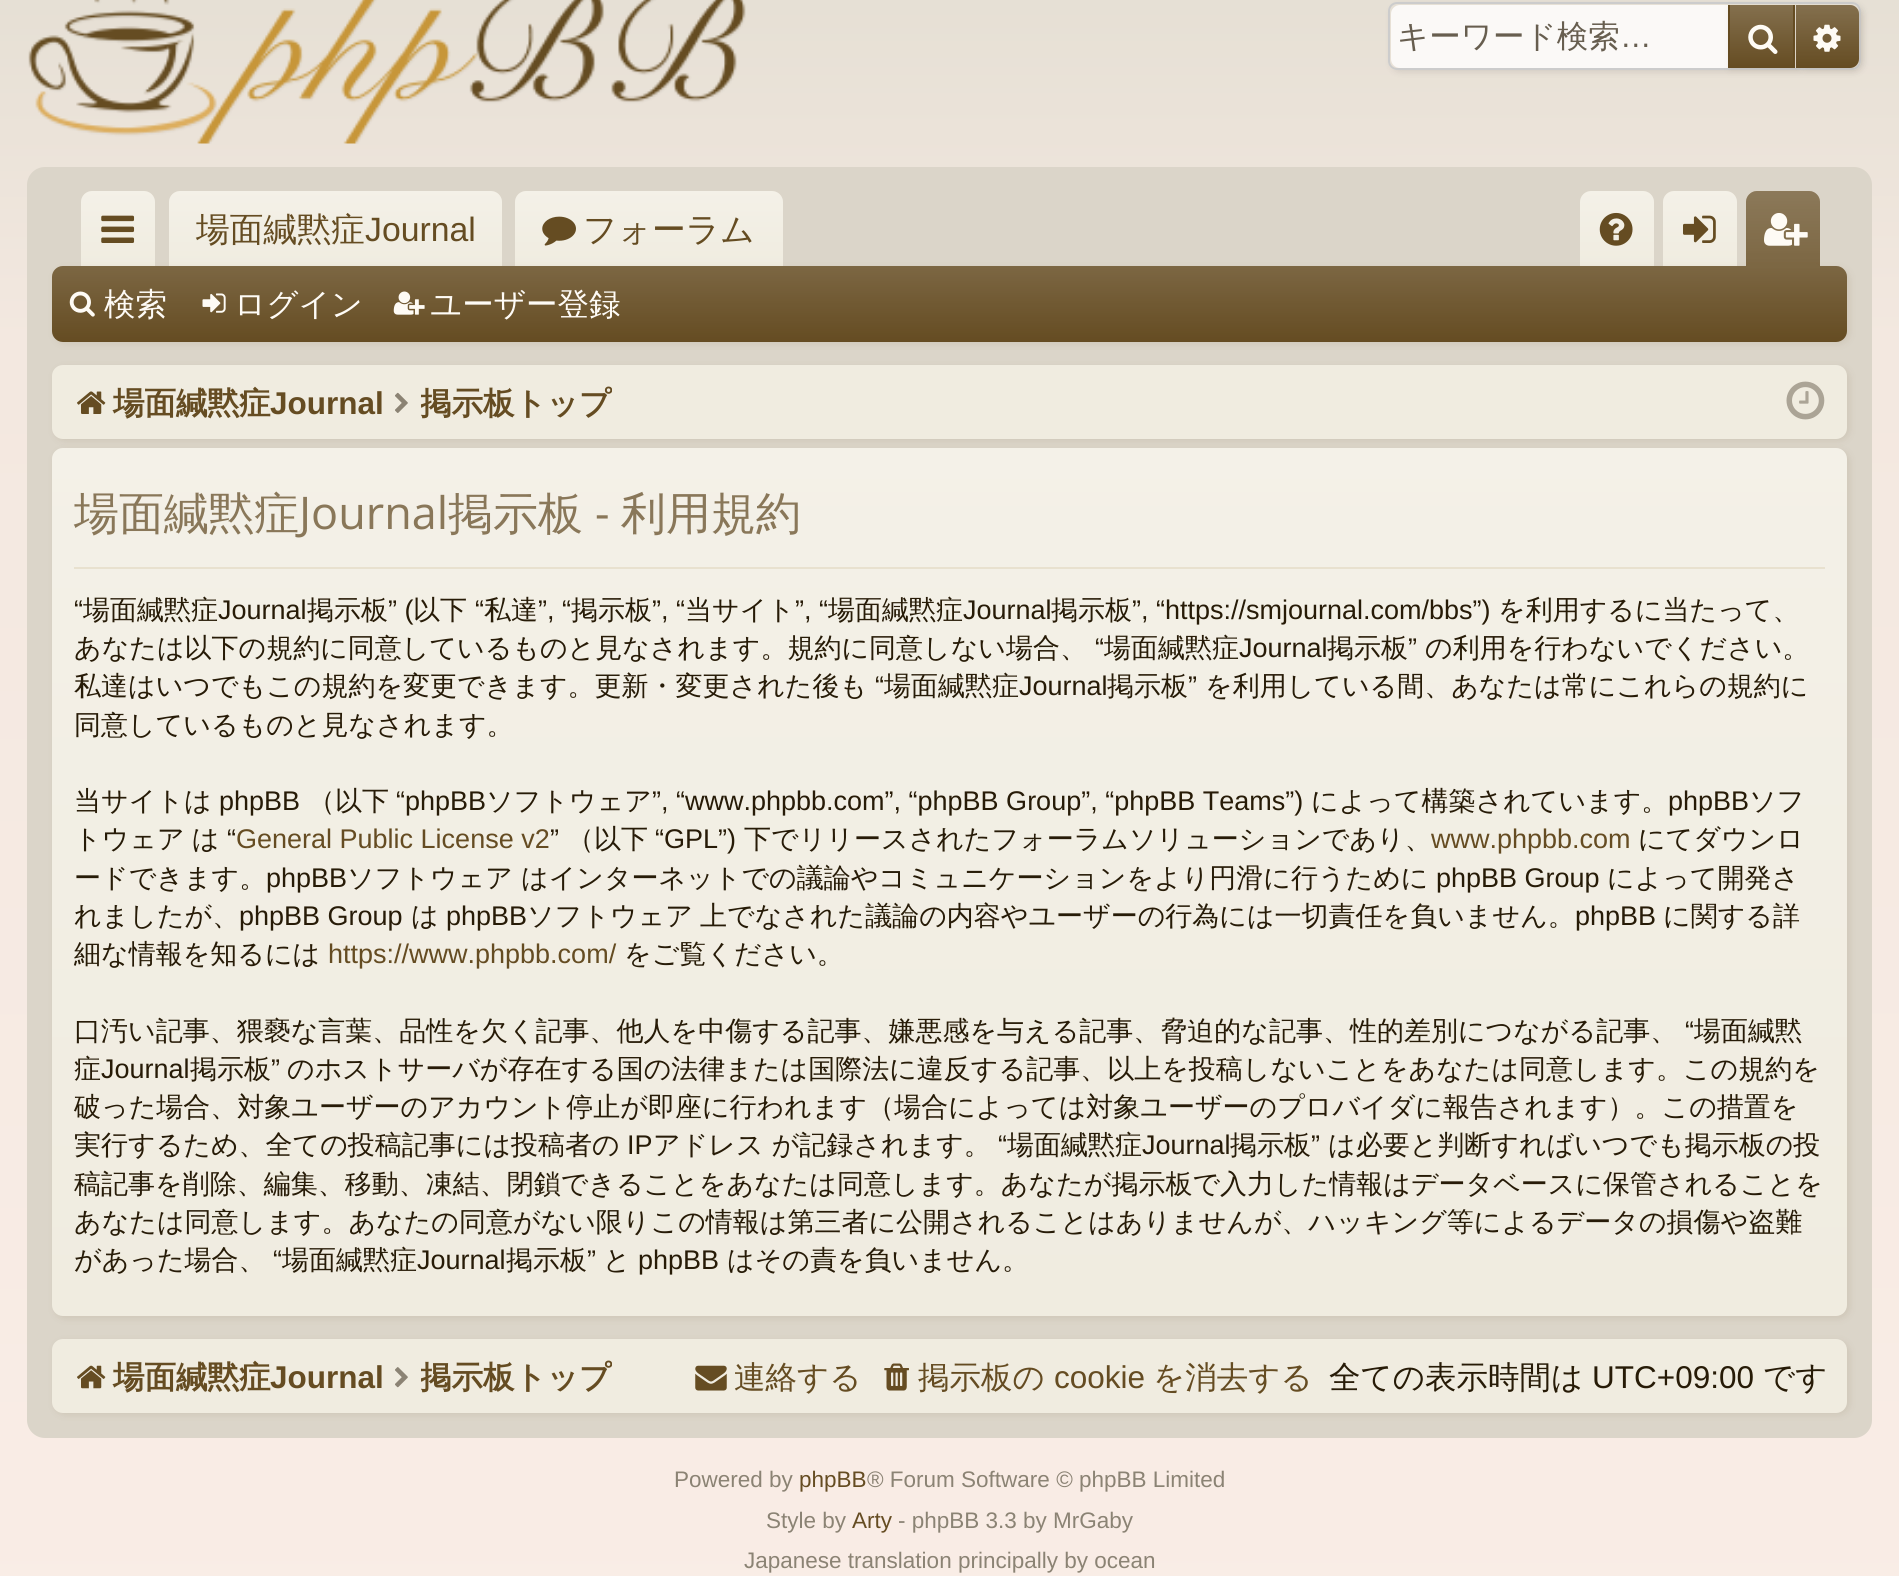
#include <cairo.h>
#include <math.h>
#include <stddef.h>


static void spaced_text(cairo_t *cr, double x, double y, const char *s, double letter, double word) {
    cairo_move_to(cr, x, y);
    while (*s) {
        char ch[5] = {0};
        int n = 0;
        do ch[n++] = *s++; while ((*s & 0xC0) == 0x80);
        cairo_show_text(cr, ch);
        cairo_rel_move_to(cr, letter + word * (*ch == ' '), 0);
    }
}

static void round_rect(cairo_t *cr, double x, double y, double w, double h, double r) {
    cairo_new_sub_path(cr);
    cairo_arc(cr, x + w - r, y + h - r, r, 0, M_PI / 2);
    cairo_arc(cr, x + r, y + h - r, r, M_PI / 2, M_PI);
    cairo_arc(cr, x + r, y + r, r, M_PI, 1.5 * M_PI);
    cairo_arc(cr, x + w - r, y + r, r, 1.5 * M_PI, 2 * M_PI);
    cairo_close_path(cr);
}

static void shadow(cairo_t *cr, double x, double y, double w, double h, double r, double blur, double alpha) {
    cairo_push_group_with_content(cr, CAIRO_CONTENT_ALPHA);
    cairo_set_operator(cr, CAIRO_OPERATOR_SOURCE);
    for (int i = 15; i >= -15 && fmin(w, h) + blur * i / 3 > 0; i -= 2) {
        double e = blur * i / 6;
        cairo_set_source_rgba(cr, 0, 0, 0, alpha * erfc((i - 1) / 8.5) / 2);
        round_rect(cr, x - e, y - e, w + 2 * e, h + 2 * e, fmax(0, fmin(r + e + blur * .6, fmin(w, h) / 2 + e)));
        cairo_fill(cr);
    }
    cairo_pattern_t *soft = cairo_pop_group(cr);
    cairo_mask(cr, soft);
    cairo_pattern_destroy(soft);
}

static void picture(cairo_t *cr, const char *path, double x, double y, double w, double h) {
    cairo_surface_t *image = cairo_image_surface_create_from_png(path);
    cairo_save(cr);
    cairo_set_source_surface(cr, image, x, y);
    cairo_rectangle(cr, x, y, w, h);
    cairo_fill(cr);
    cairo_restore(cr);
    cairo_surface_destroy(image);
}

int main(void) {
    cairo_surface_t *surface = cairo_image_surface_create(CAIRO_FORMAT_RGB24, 1899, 1576);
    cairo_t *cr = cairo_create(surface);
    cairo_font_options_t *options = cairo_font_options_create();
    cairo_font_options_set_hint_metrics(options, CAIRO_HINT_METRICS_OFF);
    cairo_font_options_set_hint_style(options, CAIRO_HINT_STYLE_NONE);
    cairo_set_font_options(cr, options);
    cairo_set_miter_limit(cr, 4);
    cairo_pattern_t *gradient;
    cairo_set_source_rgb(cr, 1, 1, 1);
    cairo_paint(cr);
    gradient = cairo_pattern_create_linear(949, -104, 950, 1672);
    cairo_pattern_add_color_stop_rgba(gradient, 0, 0.886, 0.867, 0.82, 1);
    cairo_pattern_add_color_stop_rgba(gradient, 0.25, 0.953, 0.91, 0.878, 1);
    cairo_pattern_add_color_stop_rgba(gradient, 1, 0.98, 0.929, 0.902, 1);
    cairo_set_source(cr, gradient);
    cairo_pattern_destroy(gradient);
    cairo_rectangle(cr, 0, 0, 1899, 1576);
    cairo_fill(cr);
    picture(cr, "img1.png", 28, 0, 718, 144);
    cairo_save(cr);
    cairo_set_fill_rule(cr, CAIRO_FILL_RULE_EVEN_ODD);
    cairo_new_path(cr);
    cairo_move_to(cr, 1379, 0);
    cairo_line_to(cr, 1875, 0);
    cairo_line_to(cr, 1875, 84);
    cairo_line_to(cr, 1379, 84);
    cairo_close_path(cr);
    cairo_move_to(cr, 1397, 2);
    cairo_line_to(cr, 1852, 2);
    cairo_curve_to(cr, 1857, 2, 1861, 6, 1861, 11);
    cairo_line_to(cr, 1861, 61);
    cairo_curve_to(cr, 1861, 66, 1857, 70, 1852, 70);
    cairo_line_to(cr, 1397, 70);
    cairo_curve_to(cr, 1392, 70, 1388, 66, 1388, 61);
    cairo_line_to(cr, 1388, 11);
    cairo_curve_to(cr, 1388, 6, 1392, 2, 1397, 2);
    cairo_close_path(cr);
    cairo_clip(cr);
    cairo_set_source_rgb(cr, 0, 0, 0);
    shadow(cr, 1391, 5, 472, 67, 9, 3.5, 0.1);
    cairo_restore(cr);
    round_rect(cr, 1389, 3, 471, 66, 8);
    cairo_set_source_rgb(cr, 0.8, 0.8, 0.8);
    cairo_stroke(cr);
    cairo_set_source_rgb(cr, 0.984, 0.976, 0.965);
    cairo_new_path(cr);
    cairo_move_to(cr, 1400, 5);
    cairo_line_to(cr, 1728, 5);
    cairo_line_to(cr, 1728, 68);
    cairo_line_to(cr, 1400, 68);
    cairo_curve_to(cr, 1395, 68, 1391, 64, 1391, 59);
    cairo_line_to(cr, 1391, 14);
    cairo_curve_to(cr, 1391, 9, 1395, 5, 1400, 5);
    cairo_close_path(cr);
    cairo_fill(cr);
    cairo_select_font_face(cr, "WenQuanYi Zen Hei Medium", CAIRO_FONT_SLANT_NORMAL, CAIRO_FONT_WEIGHT_NORMAL);
    cairo_set_font_size(cr, 31.5);
    cairo_set_source_rgb(cr, 0.404, 0.369, 0.31);
    cairo_move_to(cr, 1397, 47);
    cairo_show_text(cr, "キーワード検索");
    cairo_select_font_face(cr, "Liberation Sans", CAIRO_FONT_SLANT_NORMAL, CAIRO_FONT_WEIGHT_NORMAL);
    cairo_move_to(cr, 1620, 47);
    cairo_show_text(cr, "…");
    cairo_set_source_rgb(cr, 0.396, 0.298, 0.133);
    shadow(cr, 1730, 7, 68, 63, 0, 3.5, 0.1);
    gradient = cairo_pattern_create_linear(1762, 4.5, 1762, 68);
    cairo_pattern_add_color_stop_rgba(gradient, 0, 0.518, 0.439, 0.306, 1);
    cairo_pattern_add_color_stop_rgba(gradient, 1, 0.396, 0.298, 0.133, 1);
    cairo_set_source(cr, gradient);
    cairo_pattern_destroy(gradient);
    cairo_rectangle(cr, 1730, 5, 63, 63);
    cairo_fill(cr);
    cairo_set_source_rgb(cr, 0.396, 0.298, 0.133);
    cairo_rectangle(cr, 1793, 5, 2, 63);
    cairo_fill(cr);
    cairo_rectangle(cr, 1728, 5, 2, 63);
    cairo_fill(cr);
    picture(cr, "img2.png", 1748, 24, 30, 30);
    cairo_set_source_rgb(cr, 0.396, 0.298, 0.133);
    shadow(cr, 1798, 7, 63, 63, 9, 3.5, 0.1);
    cairo_set_source_rgb(cr, 0.396, 0.298, 0.133);
    cairo_new_path(cr);
    cairo_move_to(cr, 1796, 5);
    cairo_line_to(cr, 1850, 5);
    cairo_curve_to(cr, 1855, 5, 1859, 9, 1859, 14);
    cairo_line_to(cr, 1859, 59);
    cairo_curve_to(cr, 1859, 64, 1855, 68, 1850, 68);
    cairo_line_to(cr, 1796, 68);
    cairo_close_path(cr);
    cairo_fill(cr);
    gradient = cairo_pattern_create_linear(1827, 4.5, 1827, 68);
    cairo_pattern_add_color_stop_rgba(gradient, 0, 1, 1, 1, 0.2);
    cairo_pattern_add_color_stop_rgba(gradient, 1, 1, 1, 1, 0);
    cairo_set_source(cr, gradient);
    cairo_pattern_destroy(gradient);
    cairo_new_path(cr);
    cairo_move_to(cr, 1796, 5);
    cairo_line_to(cr, 1850, 5);
    cairo_curve_to(cr, 1855, 5, 1859, 9, 1859, 14);
    cairo_line_to(cr, 1859, 59);
    cairo_curve_to(cr, 1859, 64, 1855, 68, 1850, 68);
    cairo_line_to(cr, 1796, 68);
    cairo_close_path(cr);
    cairo_fill(cr);
    picture(cr, "img3.png", 1813, 24, 28, 28);
    cairo_set_source_rgb(cr, 0.859, 0.835, 0.788);
    round_rect(cr, 28, 168, 1843, 1269, 17);
    cairo_fill_preserve(cr);
    cairo_stroke(cr);
    cairo_set_source_rgb(cr, 0.941, 0.925, 0.878);
    cairo_new_path(cr);
    cairo_move_to(cr, 92, 191);
    cairo_line_to(cr, 144, 191);
    cairo_curve_to(cr, 150, 191, 155, 196, 155, 202);
    cairo_line_to(cr, 155, 266);
    cairo_line_to(cr, 81, 266);
    cairo_line_to(cr, 81, 202);
    cairo_curve_to(cr, 81, 196, 86, 191, 92, 191);
    cairo_close_path(cr);
    cairo_fill(cr);
    gradient = cairo_pattern_create_linear(118, 191, 118, 266);
    cairo_pattern_add_color_stop_rgba(gradient, 0, 1, 1, 1, 0.25);
    cairo_pattern_add_color_stop_rgba(gradient, 1, 1, 1, 1, 0);
    cairo_set_source(cr, gradient);
    cairo_pattern_destroy(gradient);
    cairo_new_path(cr);
    cairo_move_to(cr, 92, 191);
    cairo_line_to(cr, 144, 191);
    cairo_curve_to(cr, 150, 191, 155, 196, 155, 202);
    cairo_line_to(cr, 155, 266);
    cairo_line_to(cr, 81, 266);
    cairo_line_to(cr, 81, 202);
    cairo_curve_to(cr, 81, 196, 86, 191, 92, 191);
    cairo_close_path(cr);
    cairo_fill(cr);
    picture(cr, "img4.png", 101, 215, 34, 28);
    cairo_set_source_rgb(cr, 0.941, 0.925, 0.878);
    cairo_new_path(cr);
    cairo_move_to(cr, 180, 191);
    cairo_line_to(cr, 491, 191);
    cairo_curve_to(cr, 497, 191, 502, 196, 502, 202);
    cairo_line_to(cr, 502, 266);
    cairo_line_to(cr, 169, 266);
    cairo_line_to(cr, 169, 202);
    cairo_curve_to(cr, 169, 196, 174, 191, 180, 191);
    cairo_close_path(cr);
    cairo_fill(cr);
    gradient = cairo_pattern_create_linear(335, 191, 335, 266);
    cairo_pattern_add_color_stop_rgba(gradient, 0, 1, 1, 1, 0.25);
    cairo_pattern_add_color_stop_rgba(gradient, 1, 1, 1, 1, 0);
    cairo_set_source(cr, gradient);
    cairo_pattern_destroy(gradient);
    cairo_new_path(cr);
    cairo_move_to(cr, 180, 191);
    cairo_line_to(cr, 491, 191);
    cairo_curve_to(cr, 497, 191, 502, 196, 502, 202);
    cairo_line_to(cr, 502, 266);
    cairo_line_to(cr, 169, 266);
    cairo_line_to(cr, 169, 202);
    cairo_curve_to(cr, 169, 196, 174, 191, 180, 191);
    cairo_close_path(cr);
    cairo_fill(cr);
    cairo_select_font_face(cr, "WenQuanYi Zen Hei Medium", CAIRO_FONT_SLANT_NORMAL, CAIRO_FONT_WEIGHT_NORMAL);
    cairo_set_font_size(cr, 33.75);
    cairo_set_source_rgb(cr, 0.396, 0.298, 0.133);
    cairo_move_to(cr, 196, 241);
    cairo_show_text(cr, "場面緘黙症");
    cairo_select_font_face(cr, "Liberation Sans", CAIRO_FONT_SLANT_NORMAL, CAIRO_FONT_WEIGHT_NORMAL);
    cairo_move_to(cr, 365, 241);
    cairo_show_text(cr, "Journal");
    cairo_set_source_rgb(cr, 0.941, 0.925, 0.878);
    cairo_new_path(cr);
    cairo_move_to(cr, 526, 191);
    cairo_line_to(cr, 772, 191);
    cairo_curve_to(cr, 778, 191, 783, 196, 783, 202);
    cairo_line_to(cr, 783, 266);
    cairo_line_to(cr, 515, 266);
    cairo_line_to(cr, 515, 202);
    cairo_curve_to(cr, 515, 196, 520, 191, 526, 191);
    cairo_close_path(cr);
    cairo_fill(cr);
    gradient = cairo_pattern_create_linear(649, 191, 649, 266);
    cairo_pattern_add_color_stop_rgba(gradient, 0, 1, 1, 1, 0.25);
    cairo_pattern_add_color_stop_rgba(gradient, 1, 1, 1, 1, 0);
    cairo_set_source(cr, gradient);
    cairo_pattern_destroy(gradient);
    cairo_new_path(cr);
    cairo_move_to(cr, 526, 191);
    cairo_line_to(cr, 772, 191);
    cairo_curve_to(cr, 778, 191, 783, 196, 783, 202);
    cairo_line_to(cr, 783, 266);
    cairo_line_to(cr, 515, 266);
    cairo_line_to(cr, 515, 202);
    cairo_curve_to(cr, 515, 196, 520, 191, 526, 191);
    cairo_close_path(cr);
    cairo_fill(cr);
    picture(cr, "img5.png", 542, 216, 34, 30);
    cairo_select_font_face(cr, "WenQuanYi Zen Hei Medium", CAIRO_FONT_SLANT_NORMAL, CAIRO_FONT_WEIGHT_NORMAL);
    cairo_set_source_rgb(cr, 0.396, 0.298, 0.133);
    cairo_move_to(cr, 583, 241);
    cairo_show_text(cr, "フォーラム");
    cairo_set_source_rgb(cr, 0.941, 0.925, 0.878);
    cairo_new_path(cr);
    cairo_move_to(cr, 1591, 191);
    cairo_line_to(cr, 1643, 191);
    cairo_curve_to(cr, 1649, 191, 1654, 196, 1654, 202);
    cairo_line_to(cr, 1654, 266);
    cairo_line_to(cr, 1580, 266);
    cairo_line_to(cr, 1580, 202);
    cairo_curve_to(cr, 1580, 196, 1585, 191, 1591, 191);
    cairo_close_path(cr);
    cairo_fill(cr);
    gradient = cairo_pattern_create_linear(1617, 191, 1617, 266);
    cairo_pattern_add_color_stop_rgba(gradient, 0, 1, 1, 1, 0.25);
    cairo_pattern_add_color_stop_rgba(gradient, 1, 1, 1, 1, 0);
    cairo_set_source(cr, gradient);
    cairo_pattern_destroy(gradient);
    cairo_new_path(cr);
    cairo_move_to(cr, 1591, 191);
    cairo_line_to(cr, 1643, 191);
    cairo_curve_to(cr, 1649, 191, 1654, 196, 1654, 202);
    cairo_line_to(cr, 1654, 266);
    cairo_line_to(cr, 1580, 266);
    cairo_line_to(cr, 1580, 202);
    cairo_curve_to(cr, 1580, 196, 1585, 191, 1591, 191);
    cairo_close_path(cr);
    cairo_fill(cr);
    picture(cr, "img6.png", 1599, 212, 34, 34);
    cairo_set_source_rgb(cr, 0.941, 0.925, 0.878);
    cairo_new_path(cr);
    cairo_move_to(cr, 1674, 191);
    cairo_line_to(cr, 1726, 191);
    cairo_curve_to(cr, 1732, 191, 1737, 196, 1737, 202);
    cairo_line_to(cr, 1737, 266);
    cairo_line_to(cr, 1663, 266);
    cairo_line_to(cr, 1663, 202);
    cairo_curve_to(cr, 1663, 196, 1668, 191, 1674, 191);
    cairo_close_path(cr);
    cairo_fill(cr);
    gradient = cairo_pattern_create_linear(1700, 191, 1700, 266);
    cairo_pattern_add_color_stop_rgba(gradient, 0, 1, 1, 1, 0.25);
    cairo_pattern_add_color_stop_rgba(gradient, 1, 1, 1, 1, 0);
    cairo_set_source(cr, gradient);
    cairo_pattern_destroy(gradient);
    cairo_new_path(cr);
    cairo_move_to(cr, 1674, 191);
    cairo_line_to(cr, 1726, 191);
    cairo_curve_to(cr, 1732, 191, 1737, 196, 1737, 202);
    cairo_line_to(cr, 1737, 266);
    cairo_line_to(cr, 1663, 266);
    cairo_line_to(cr, 1663, 202);
    cairo_curve_to(cr, 1663, 196, 1668, 191, 1674, 191);
    cairo_close_path(cr);
    cairo_fill(cr);
    picture(cr, "img7.png", 1683, 215, 33, 28);
    cairo_set_source_rgb(cr, 0.396, 0.298, 0.133);
    cairo_new_path(cr);
    cairo_move_to(cr, 1757, 191);
    cairo_line_to(cr, 1809, 191);
    cairo_curve_to(cr, 1815, 191, 1820, 196, 1820, 202);
    cairo_line_to(cr, 1820, 266);
    cairo_line_to(cr, 1746, 266);
    cairo_line_to(cr, 1746, 202);
    cairo_curve_to(cr, 1746, 196, 1751, 191, 1757, 191);
    cairo_close_path(cr);
    cairo_fill(cr);
    gradient = cairo_pattern_create_linear(1783, 191, 1783, 266);
    cairo_pattern_add_color_stop_rgba(gradient, 0, 1, 1, 1, 0.25);
    cairo_pattern_add_color_stop_rgba(gradient, 1, 1, 1, 1, 0.15);
    cairo_set_source(cr, gradient);
    cairo_pattern_destroy(gradient);
    cairo_new_path(cr);
    cairo_move_to(cr, 1757, 191);
    cairo_line_to(cr, 1809, 191);
    cairo_curve_to(cr, 1815, 191, 1820, 196, 1820, 202);
    cairo_line_to(cr, 1820, 266);
    cairo_line_to(cr, 1746, 266);
    cairo_line_to(cr, 1746, 202);
    cairo_curve_to(cr, 1746, 196, 1751, 191, 1757, 191);
    cairo_close_path(cr);
    cairo_fill(cr);
    picture(cr, "img8.png", 1764, 213, 44, 33);
    cairo_set_source_rgb(cr, 0.396, 0.298, 0.133);
    shadow(cr, 54, 268, 1796, 76, 11, 3.5, 0.1);
    cairo_set_source_rgb(cr, 0.396, 0.298, 0.133);
    round_rect(cr, 52, 266, 1795, 76, 11);
    cairo_fill(cr);
    gradient = cairo_pattern_create_linear(950, 265, 950, 342);
    cairo_pattern_add_color_stop_rgba(gradient, 0, 1, 1, 1, 0.15);
    cairo_pattern_add_color_stop_rgba(gradient, 1, 1, 1, 1, 0);
    cairo_set_source(cr, gradient);
    cairo_pattern_destroy(gradient);
    round_rect(cr, 52, 266, 1795, 76, 11);
    cairo_fill(cr);
    cairo_set_source_rgb(cr, 0.396, 0.298, 0.133);
    cairo_new_path(cr);
    cairo_move_to(cr, 1751, 263);
    cairo_line_to(cr, 1815, 263);
    cairo_curve_to(cr, 1818, 263, 1820, 265, 1820, 268);
    cairo_line_to(cr, 1746, 268);
    cairo_curve_to(cr, 1746, 265, 1748, 263, 1751, 263);
    cairo_close_path(cr);
    cairo_fill(cr);
    cairo_set_source_rgba(cr, 1, 1, 1, 0.15);
    cairo_new_path(cr);
    cairo_move_to(cr, 1751, 263);
    cairo_line_to(cr, 1815, 263);
    cairo_curve_to(cr, 1818, 263, 1820, 265, 1820, 268);
    cairo_line_to(cr, 1746, 268);
    cairo_curve_to(cr, 1746, 265, 1748, 263, 1751, 263);
    cairo_close_path(cr);
    cairo_fill(cr);
    picture(cr, "img9.png", 69, 291, 26, 26);
    cairo_set_font_size(cr, 31.5);
    cairo_set_source_rgb(cr, 0.996, 0.984, 0.961);
    cairo_move_to(cr, 104, 315);
    cairo_show_text(cr, "検索");
    picture(cr, "img10.png", 202, 293, 24, 20);
    cairo_move_to(cr, 234, 315);
    cairo_show_text(cr, "ログイン");
    picture(cr, "img11.png", 393, 291, 32, 24);
    cairo_move_to(cr, 430, 315);
    cairo_show_text(cr, "ユーザー登録");
    cairo_set_source_rgb(cr, 0.396, 0.298, 0.133);
    shadow(cr, 54, 367, 1796, 74, 11, 3.5, 0.1);
    cairo_set_source_rgb(cr, 0.941, 0.925, 0.878);
    round_rect(cr, 52, 365, 1795, 74, 11);
    cairo_fill(cr);
    picture(cr, "img12.png", 77, 391, 29, 23);
    cairo_select_font_face(cr, "WenQuanYi Zen Hei", CAIRO_FONT_SLANT_NORMAL, CAIRO_FONT_WEIGHT_BOLD);
    cairo_set_source_rgb(cr, 0.396, 0.298, 0.133);
    cairo_move_to(cr, 113, 414);
    cairo_show_text(cr, "場面緘黙症");
    cairo_select_font_face(cr, "Liberation Sans", CAIRO_FONT_SLANT_NORMAL, CAIRO_FONT_WEIGHT_BOLD);
    cairo_move_to(cr, 270, 414);
    cairo_show_text(cr, "Journal");
    picture(cr, "img13.png", 395, 392, 13, 21);
    cairo_save(cr);
    cairo_rectangle(cr, 421, 371, 191, 63);
    cairo_clip(cr);
    cairo_select_font_face(cr, "WenQuanYi Zen Hei", CAIRO_FONT_SLANT_NORMAL, CAIRO_FONT_WEIGHT_BOLD);
    cairo_move_to(cr, 420, 414);
    cairo_show_text(cr, "掲示板トップ");
    cairo_restore(cr);
    picture(cr, "img14.png", 1786, 381, 39, 39);
    cairo_set_source_rgb(cr, 0.396, 0.298, 0.133);
    shadow(cr, 54, 450, 1796, 869, 11, 3.5, 0.1);
    cairo_set_source_rgb(cr, 0.941, 0.925, 0.878);
    round_rect(cr, 52, 448, 1795, 868, 11);
    cairo_fill(cr);
    gradient = cairo_pattern_create_linear(950, 448, 950, 1316);
    cairo_pattern_add_color_stop_rgba(gradient, 0, 1, 1, 1, 0.25);
    cairo_pattern_add_color_stop_rgba(gradient, 1, 1, 1, 1, 0);
    cairo_set_source(cr, gradient);
    cairo_pattern_destroy(gradient);
    round_rect(cr, 52, 448, 1795, 868, 11);
    cairo_fill(cr);
    cairo_set_source_rgb(cr, 0.91, 0.882, 0.812);
    cairo_rectangle(cr, 74, 567, 1751, 2);
    cairo_fill(cr);
    cairo_select_font_face(cr, "WenQuanYi Zen Hei Medium", CAIRO_FONT_SLANT_NORMAL, CAIRO_FONT_WEIGHT_NORMAL);
    cairo_set_font_size(cr, 45);
    cairo_set_source_rgb(cr, 0.537, 0.467, 0.349);
    cairo_move_to(cr, 74, 529);
    cairo_show_text(cr, "場面緘黙症");
    cairo_select_font_face(cr, "Open Sans", CAIRO_FONT_SLANT_NORMAL, CAIRO_FONT_WEIGHT_NORMAL);
    cairo_move_to(cr, 299, 529);
    cairo_show_text(cr, "Journal");
    cairo_select_font_face(cr, "WenQuanYi Zen Hei Medium", CAIRO_FONT_SLANT_NORMAL, CAIRO_FONT_WEIGHT_NORMAL);
    cairo_move_to(cr, 448, 529);
    cairo_show_text(cr, "掲示板");
    cairo_select_font_face(cr, "Open Sans", CAIRO_FONT_SLANT_NORMAL, CAIRO_FONT_WEIGHT_NORMAL);
    cairo_move_to(cr, 595, 529);
    cairo_show_text(cr, "-");
    cairo_select_font_face(cr, "WenQuanYi Zen Hei Medium", CAIRO_FONT_SLANT_NORMAL, CAIRO_FONT_WEIGHT_NORMAL);
    cairo_move_to(cr, 621, 529);
    cairo_show_text(cr, "利用規約");
    cairo_select_font_face(cr, "Liberation Sans", CAIRO_FONT_SLANT_NORMAL, CAIRO_FONT_WEIGHT_NORMAL);
    cairo_set_font_size(cr, 27);
    cairo_set_source_rgb(cr, 0.153, 0.106, 0.031);
    cairo_move_to(cr, 74, 619);
    cairo_show_text(cr, "“");
    cairo_select_font_face(cr, "WenQuanYi Zen Hei Medium", CAIRO_FONT_SLANT_NORMAL, CAIRO_FONT_WEIGHT_NORMAL);
    cairo_move_to(cr, 83, 619);
    cairo_show_text(cr, "場面緘黙症");
    cairo_select_font_face(cr, "Liberation Sans", CAIRO_FONT_SLANT_NORMAL, CAIRO_FONT_WEIGHT_NORMAL);
    cairo_move_to(cr, 218, 619);
    cairo_show_text(cr, "Journal");
    cairo_select_font_face(cr, "WenQuanYi Zen Hei Medium", CAIRO_FONT_SLANT_NORMAL, CAIRO_FONT_WEIGHT_NORMAL);
    cairo_move_to(cr, 307, 619);
    cairo_show_text(cr, "掲示板");
    cairo_select_font_face(cr, "Liberation Sans", CAIRO_FONT_SLANT_NORMAL, CAIRO_FONT_WEIGHT_NORMAL);
    cairo_move_to(cr, 388, 619);
    cairo_show_text(cr, "” (");
    cairo_select_font_face(cr, "WenQuanYi Zen Hei Medium", CAIRO_FONT_SLANT_NORMAL, CAIRO_FONT_WEIGHT_NORMAL);
    cairo_move_to(cr, 413, 619);
    cairo_show_text(cr, "以下");
    cairo_select_font_face(cr, "Liberation Sans", CAIRO_FONT_SLANT_NORMAL, CAIRO_FONT_WEIGHT_NORMAL);
    cairo_move_to(cr, 475, 619);
    cairo_show_text(cr, "“");
    cairo_select_font_face(cr, "WenQuanYi Zen Hei Medium", CAIRO_FONT_SLANT_NORMAL, CAIRO_FONT_WEIGHT_NORMAL);
    cairo_move_to(cr, 484, 619);
    cairo_show_text(cr, "私達");
    cairo_select_font_face(cr, "Liberation Sans", CAIRO_FONT_SLANT_NORMAL, CAIRO_FONT_WEIGHT_NORMAL);
    cairo_move_to(cr, 538, 619);
    cairo_show_text(cr, "”, “");
    cairo_select_font_face(cr, "WenQuanYi Zen Hei Medium", CAIRO_FONT_SLANT_NORMAL, CAIRO_FONT_WEIGHT_NORMAL);
    cairo_move_to(cr, 571, 619);
    cairo_show_text(cr, "掲示板");
    cairo_select_font_face(cr, "Liberation Sans", CAIRO_FONT_SLANT_NORMAL, CAIRO_FONT_WEIGHT_NORMAL);
    cairo_move_to(cr, 652, 619);
    cairo_show_text(cr, "”, “");
    cairo_select_font_face(cr, "WenQuanYi Zen Hei Medium", CAIRO_FONT_SLANT_NORMAL, CAIRO_FONT_WEIGHT_NORMAL);
    cairo_move_to(cr, 685, 619);
    cairo_show_text(cr, "当サイト");
    cairo_select_font_face(cr, "Liberation Sans", CAIRO_FONT_SLANT_NORMAL, CAIRO_FONT_WEIGHT_NORMAL);
    cairo_move_to(cr, 795, 619);
    cairo_show_text(cr, "”, “");
    cairo_select_font_face(cr, "WenQuanYi Zen Hei Medium", CAIRO_FONT_SLANT_NORMAL, CAIRO_FONT_WEIGHT_NORMAL);
    cairo_move_to(cr, 828, 619);
    cairo_show_text(cr, "場面緘黙症");
    cairo_select_font_face(cr, "Liberation Sans", CAIRO_FONT_SLANT_NORMAL, CAIRO_FONT_WEIGHT_NORMAL);
    cairo_move_to(cr, 963, 619);
    cairo_show_text(cr, "Journal");
    cairo_select_font_face(cr, "WenQuanYi Zen Hei Medium", CAIRO_FONT_SLANT_NORMAL, CAIRO_FONT_WEIGHT_NORMAL);
    cairo_move_to(cr, 1051, 619);
    cairo_show_text(cr, "掲示板");
    cairo_select_font_face(cr, "Liberation Sans", CAIRO_FONT_SLANT_NORMAL, CAIRO_FONT_WEIGHT_NORMAL);
    cairo_move_to(cr, 1132, 619);
    cairo_show_text(cr, "”, “https://smjournal.com/bbs”)");
    cairo_select_font_face(cr, "WenQuanYi Zen Hei Medium", CAIRO_FONT_SLANT_NORMAL, CAIRO_FONT_WEIGHT_NORMAL);
    cairo_move_to(cr, 1498, 619);
    cairo_show_text(cr, "を利用するに当たって、");
    cairo_move_to(cr, 74, 657);
    cairo_show_text(cr, "あなたは以下の規約に同意しているものと見なされます。規約に同意しない場合、");
    cairo_select_font_face(cr, "Liberation Sans", CAIRO_FONT_SLANT_NORMAL, CAIRO_FONT_WEIGHT_NORMAL);
    cairo_move_to(cr, 1095, 657);
    cairo_show_text(cr, "“");
    cairo_select_font_face(cr, "WenQuanYi Zen Hei Medium", CAIRO_FONT_SLANT_NORMAL, CAIRO_FONT_WEIGHT_NORMAL);
    cairo_move_to(cr, 1104, 657);
    cairo_show_text(cr, "場面緘黙症");
    cairo_select_font_face(cr, "Liberation Sans", CAIRO_FONT_SLANT_NORMAL, CAIRO_FONT_WEIGHT_NORMAL);
    cairo_move_to(cr, 1239, 657);
    cairo_show_text(cr, "Journal");
    cairo_select_font_face(cr, "WenQuanYi Zen Hei Medium", CAIRO_FONT_SLANT_NORMAL, CAIRO_FONT_WEIGHT_NORMAL);
    cairo_move_to(cr, 1327, 657);
    cairo_show_text(cr, "掲示板");
    cairo_select_font_face(cr, "Liberation Sans", CAIRO_FONT_SLANT_NORMAL, CAIRO_FONT_WEIGHT_NORMAL);
    cairo_move_to(cr, 1408, 657);
    cairo_show_text(cr, "”");
    cairo_select_font_face(cr, "WenQuanYi Zen Hei Medium", CAIRO_FONT_SLANT_NORMAL, CAIRO_FONT_WEIGHT_NORMAL);
    cairo_move_to(cr, 1425, 657);
    cairo_show_text(cr, "の利用を行わないでください。");
    cairo_move_to(cr, 74, 695);
    cairo_show_text(cr, "私達はいつでもこの規約を変更できます。更新・変更された後も");
    cairo_select_font_face(cr, "Liberation Sans", CAIRO_FONT_SLANT_NORMAL, CAIRO_FONT_WEIGHT_NORMAL);
    cairo_move_to(cr, 875, 695);
    cairo_show_text(cr, "“");
    cairo_select_font_face(cr, "WenQuanYi Zen Hei Medium", CAIRO_FONT_SLANT_NORMAL, CAIRO_FONT_WEIGHT_NORMAL);
    cairo_move_to(cr, 884, 695);
    cairo_show_text(cr, "場面緘黙症");
    cairo_select_font_face(cr, "Liberation Sans", CAIRO_FONT_SLANT_NORMAL, CAIRO_FONT_WEIGHT_NORMAL);
    cairo_move_to(cr, 1019, 695);
    cairo_show_text(cr, "Journal");
    cairo_select_font_face(cr, "WenQuanYi Zen Hei Medium", CAIRO_FONT_SLANT_NORMAL, CAIRO_FONT_WEIGHT_NORMAL);
    cairo_move_to(cr, 1107, 695);
    cairo_show_text(cr, "掲示板");
    cairo_select_font_face(cr, "Liberation Sans", CAIRO_FONT_SLANT_NORMAL, CAIRO_FONT_WEIGHT_NORMAL);
    cairo_move_to(cr, 1188, 695);
    cairo_show_text(cr, "”");
    cairo_select_font_face(cr, "WenQuanYi Zen Hei Medium", CAIRO_FONT_SLANT_NORMAL, CAIRO_FONT_WEIGHT_NORMAL);
    cairo_move_to(cr, 1205, 695);
    cairo_show_text(cr, "を利用している間、あなたは常にこれらの規約に");
    cairo_move_to(cr, 74, 734);
    cairo_show_text(cr, "同意しているものと見なされます。");
    cairo_move_to(cr, 74, 810);
    cairo_show_text(cr, "当サイトは");
    cairo_select_font_face(cr, "Liberation Sans", CAIRO_FONT_SLANT_NORMAL, CAIRO_FONT_WEIGHT_NORMAL);
    cairo_move_to(cr, 219, 810);
    cairo_show_text(cr, "phpBB");
    cairo_select_font_face(cr, "WenQuanYi Zen Hei Medium", CAIRO_FONT_SLANT_NORMAL, CAIRO_FONT_WEIGHT_NORMAL);
    cairo_move_to(cr, 308, 810);
    cairo_show_text(cr, "（以下");
    cairo_select_font_face(cr, "Liberation Sans", CAIRO_FONT_SLANT_NORMAL, CAIRO_FONT_WEIGHT_NORMAL);
    cairo_move_to(cr, 396, 810);
    cairo_show_text(cr, "“phpBB");
    cairo_select_font_face(cr, "WenQuanYi Zen Hei Medium", CAIRO_FONT_SLANT_NORMAL, CAIRO_FONT_WEIGHT_NORMAL);
    cairo_move_to(cr, 486, 810);
    cairo_show_text(cr, "ソフトウェア");
    cairo_select_font_face(cr, "Liberation Sans", CAIRO_FONT_SLANT_NORMAL, CAIRO_FONT_WEIGHT_NORMAL);
    cairo_move_to(cr, 652, 810);
    cairo_show_text(cr, "”, “www.phpbb.com”, “phpBB Group”, “phpBB Teams”)");
    cairo_select_font_face(cr, "WenQuanYi Zen Hei Medium", CAIRO_FONT_SLANT_NORMAL, CAIRO_FONT_WEIGHT_NORMAL);
    cairo_move_to(cr, 1311, 810);
    cairo_show_text(cr, "によって構築されています。");
    cairo_select_font_face(cr, "Liberation Sans", CAIRO_FONT_SLANT_NORMAL, CAIRO_FONT_WEIGHT_NORMAL);
    cairo_move_to(cr, 1668, 810);
    cairo_show_text(cr, "phpBB");
    cairo_select_font_face(cr, "WenQuanYi Zen Hei Medium", CAIRO_FONT_SLANT_NORMAL, CAIRO_FONT_WEIGHT_NORMAL);
    cairo_move_to(cr, 1749, 810);
    cairo_show_text(cr, "ソフ");
    spaced_text(cr, 74, 848, "トウェア は", 0, -1);
    cairo_select_font_face(cr, "Liberation Sans", CAIRO_FONT_SLANT_NORMAL, CAIRO_FONT_WEIGHT_NORMAL);
    cairo_move_to(cr, 227, 848);
    cairo_show_text(cr, "“");
    cairo_set_source_rgb(cr, 0.396, 0.298, 0.133);
    cairo_move_to(cr, 236, 848);
    cairo_show_text(cr, "General Public License v2");
    cairo_set_source_rgb(cr, 0.153, 0.106, 0.031);
    cairo_move_to(cr, 550, 848);
    cairo_show_text(cr, "”");
    cairo_select_font_face(cr, "WenQuanYi Zen Hei Medium", CAIRO_FONT_SLANT_NORMAL, CAIRO_FONT_WEIGHT_NORMAL);
    cairo_move_to(cr, 567, 848);
    cairo_show_text(cr, "（以下");
    cairo_select_font_face(cr, "Liberation Sans", CAIRO_FONT_SLANT_NORMAL, CAIRO_FONT_WEIGHT_NORMAL);
    cairo_move_to(cr, 655, 848);
    cairo_show_text(cr, "“GPL”)");
    cairo_select_font_face(cr, "WenQuanYi Zen Hei Medium", CAIRO_FONT_SLANT_NORMAL, CAIRO_FONT_WEIGHT_NORMAL);
    cairo_move_to(cr, 744, 848);
    cairo_show_text(cr, "下でリリースされたフォーラムソリューションであり、");
    cairo_select_font_face(cr, "Liberation Sans", CAIRO_FONT_SLANT_NORMAL, CAIRO_FONT_WEIGHT_NORMAL);
    cairo_set_source_rgb(cr, 0.396, 0.298, 0.133);
    cairo_move_to(cr, 1431, 848);
    cairo_show_text(cr, "www.phpbb.com");
    cairo_select_font_face(cr, "WenQuanYi Zen Hei Medium", CAIRO_FONT_SLANT_NORMAL, CAIRO_FONT_WEIGHT_NORMAL);
    cairo_set_source_rgb(cr, 0.153, 0.106, 0.031);
    cairo_move_to(cr, 1638, 848);
    cairo_show_text(cr, "にてダウンロ");
    cairo_move_to(cr, 74, 887);
    cairo_show_text(cr, "ードできます。");
    cairo_select_font_face(cr, "Liberation Sans", CAIRO_FONT_SLANT_NORMAL, CAIRO_FONT_WEIGHT_NORMAL);
    cairo_move_to(cr, 266, 887);
    cairo_show_text(cr, "phpBB");
    cairo_select_font_face(cr, "WenQuanYi Zen Hei Medium", CAIRO_FONT_SLANT_NORMAL, CAIRO_FONT_WEIGHT_NORMAL);
    cairo_move_to(cr, 347, 887);
    cairo_show_text(cr, "ソフトウェア");
    cairo_move_to(cr, 521, 887);
    cairo_show_text(cr, "はインターネットでの議論やコミュニケーションをより円滑に行うために");
    cairo_select_font_face(cr, "Liberation Sans", CAIRO_FONT_SLANT_NORMAL, CAIRO_FONT_WEIGHT_NORMAL);
    cairo_move_to(cr, 1436, 887);
    cairo_show_text(cr, "phpBB Group");
    cairo_select_font_face(cr, "WenQuanYi Zen Hei Medium", CAIRO_FONT_SLANT_NORMAL, CAIRO_FONT_WEIGHT_NORMAL);
    cairo_move_to(cr, 1607, 887);
    cairo_show_text(cr, "によって開発さ");
    cairo_move_to(cr, 74, 925);
    cairo_show_text(cr, "れましたが、");
    cairo_select_font_face(cr, "Liberation Sans", CAIRO_FONT_SLANT_NORMAL, CAIRO_FONT_WEIGHT_NORMAL);
    cairo_move_to(cr, 239, 925);
    cairo_show_text(cr, "phpBB Group");
    cairo_select_font_face(cr, "WenQuanYi Zen Hei Medium", CAIRO_FONT_SLANT_NORMAL, CAIRO_FONT_WEIGHT_NORMAL);
    cairo_move_to(cr, 411, 925);
    cairo_show_text(cr, "は");
    cairo_select_font_face(cr, "Liberation Sans", CAIRO_FONT_SLANT_NORMAL, CAIRO_FONT_WEIGHT_NORMAL);
    cairo_move_to(cr, 446, 925);
    cairo_show_text(cr, "phpBB");
    cairo_select_font_face(cr, "WenQuanYi Zen Hei Medium", CAIRO_FONT_SLANT_NORMAL, CAIRO_FONT_WEIGHT_NORMAL);
    cairo_move_to(cr, 527, 925);
    cairo_show_text(cr, "ソフトウェア");
    cairo_move_to(cr, 700, 925);
    cairo_show_text(cr, "上でなされた議論の内容やユーザーの行為には一切責任を負いません。");
    cairo_select_font_face(cr, "Liberation Sans", CAIRO_FONT_SLANT_NORMAL, CAIRO_FONT_WEIGHT_NORMAL);
    cairo_move_to(cr, 1575, 925);
    cairo_show_text(cr, "phpBB");
    cairo_select_font_face(cr, "WenQuanYi Zen Hei Medium", CAIRO_FONT_SLANT_NORMAL, CAIRO_FONT_WEIGHT_NORMAL);
    cairo_move_to(cr, 1663, 925);
    cairo_show_text(cr, "に関する詳");
    cairo_move_to(cr, 74, 963);
    cairo_show_text(cr, "細な情報を知るには");
    cairo_select_font_face(cr, "Liberation Sans", CAIRO_FONT_SLANT_NORMAL, CAIRO_FONT_WEIGHT_NORMAL);
    cairo_set_source_rgb(cr, 0.396, 0.298, 0.133);
    cairo_move_to(cr, 328, 963);
    cairo_show_text(cr, "https://www.phpbb.com/");
    cairo_select_font_face(cr, "WenQuanYi Zen Hei Medium", CAIRO_FONT_SLANT_NORMAL, CAIRO_FONT_WEIGHT_NORMAL);
    cairo_set_source_rgb(cr, 0.153, 0.106, 0.031);
    cairo_move_to(cr, 624, 963);
    cairo_show_text(cr, "をご覧ください。");
    cairo_move_to(cr, 74, 1040);
    cairo_show_text(cr, "口汚い記事、猥褻な言葉、品性を欠く記事、他人を中傷する記事、嫌悪感を与える記事、脅迫的な記事、性的差別につながる記事、");
    cairo_select_font_face(cr, "Liberation Sans", CAIRO_FONT_SLANT_NORMAL, CAIRO_FONT_WEIGHT_NORMAL);
    cairo_move_to(cr, 1685, 1040);
    cairo_show_text(cr, "“");
    cairo_select_font_face(cr, "WenQuanYi Zen Hei Medium", CAIRO_FONT_SLANT_NORMAL, CAIRO_FONT_WEIGHT_NORMAL);
    cairo_move_to(cr, 1694, 1040);
    cairo_show_text(cr, "場面緘黙");
    cairo_move_to(cr, 74, 1078);
    cairo_show_text(cr, "症");
    cairo_select_font_face(cr, "Liberation Sans", CAIRO_FONT_SLANT_NORMAL, CAIRO_FONT_WEIGHT_NORMAL);
    cairo_move_to(cr, 101, 1078);
    cairo_show_text(cr, "Journal");
    cairo_select_font_face(cr, "WenQuanYi Zen Hei Medium", CAIRO_FONT_SLANT_NORMAL, CAIRO_FONT_WEIGHT_NORMAL);
    cairo_move_to(cr, 190, 1078);
    cairo_show_text(cr, "掲示板");
    cairo_select_font_face(cr, "Liberation Sans", CAIRO_FONT_SLANT_NORMAL, CAIRO_FONT_WEIGHT_NORMAL);
    cairo_move_to(cr, 271, 1078);
    cairo_show_text(cr, "”");
    cairo_select_font_face(cr, "WenQuanYi Zen Hei Medium", CAIRO_FONT_SLANT_NORMAL, CAIRO_FONT_WEIGHT_NORMAL);
    cairo_move_to(cr, 287, 1078);
    cairo_show_text(cr, "のホストサーバが存在する国の法律または国際法に違反する記事、以上を投稿しないことをあなたは同意します。この規約を");
    cairo_move_to(cr, 74, 1116);
    cairo_show_text(cr, "破った場合、対象ユーザーのアカウント停止が即座に行われます（場合によっては対象ユーザーのプロバイダに報告されます）。この措置を");
    cairo_move_to(cr, 74, 1154);
    cairo_show_text(cr, "実行するため、全ての投稿記事には投稿者の");
    cairo_select_font_face(cr, "Liberation Sans", CAIRO_FONT_SLANT_NORMAL, CAIRO_FONT_WEIGHT_NORMAL);
    cairo_move_to(cr, 627, 1154);
    cairo_show_text(cr, "IP");
    cairo_select_font_face(cr, "WenQuanYi Zen Hei Medium", CAIRO_FONT_SLANT_NORMAL, CAIRO_FONT_WEIGHT_NORMAL);
    cairo_move_to(cr, 653, 1154);
    cairo_show_text(cr, "アドレス が記録されます。");
    cairo_select_font_face(cr, "Liberation Sans", CAIRO_FONT_SLANT_NORMAL, CAIRO_FONT_WEIGHT_NORMAL);
    cairo_move_to(cr, 998, 1154);
    cairo_show_text(cr, "“");
    cairo_select_font_face(cr, "WenQuanYi Zen Hei Medium", CAIRO_FONT_SLANT_NORMAL, CAIRO_FONT_WEIGHT_NORMAL);
    cairo_move_to(cr, 1007, 1154);
    cairo_show_text(cr, "場面緘黙症");
    cairo_select_font_face(cr, "Liberation Sans", CAIRO_FONT_SLANT_NORMAL, CAIRO_FONT_WEIGHT_NORMAL);
    cairo_move_to(cr, 1142, 1154);
    cairo_show_text(cr, "Journal");
    cairo_select_font_face(cr, "WenQuanYi Zen Hei Medium", CAIRO_FONT_SLANT_NORMAL, CAIRO_FONT_WEIGHT_NORMAL);
    cairo_move_to(cr, 1230, 1154);
    cairo_show_text(cr, "掲示板");
    cairo_select_font_face(cr, "Liberation Sans", CAIRO_FONT_SLANT_NORMAL, CAIRO_FONT_WEIGHT_NORMAL);
    cairo_move_to(cr, 1311, 1154);
    cairo_show_text(cr, "”");
    cairo_select_font_face(cr, "WenQuanYi Zen Hei Medium", CAIRO_FONT_SLANT_NORMAL, CAIRO_FONT_WEIGHT_NORMAL);
    cairo_move_to(cr, 1328, 1154);
    cairo_show_text(cr, "は必要と判断すればいつでも掲示板の投");
    cairo_move_to(cr, 74, 1193);
    cairo_show_text(cr, "稿記事を削除、編集、移動、凍結、閉鎖できることをあなたは同意します。あなたが掲示板で入力した情報はデータベースに保管されることを");
    cairo_move_to(cr, 74, 1231);
    cairo_show_text(cr, "あなたは同意します。あなたの同意がない限りこの情報は第三者に公開されることはありませんが、ハッキング等によるデータの損傷や盗難");
    cairo_move_to(cr, 74, 1269);
    cairo_show_text(cr, "があった場合、");
    cairo_select_font_face(cr, "Liberation Sans", CAIRO_FONT_SLANT_NORMAL, CAIRO_FONT_WEIGHT_NORMAL);
    cairo_move_to(cr, 273, 1269);
    cairo_show_text(cr, "“");
    cairo_select_font_face(cr, "WenQuanYi Zen Hei Medium", CAIRO_FONT_SLANT_NORMAL, CAIRO_FONT_WEIGHT_NORMAL);
    cairo_move_to(cr, 282, 1269);
    cairo_show_text(cr, "場面緘黙症");
    cairo_select_font_face(cr, "Liberation Sans", CAIRO_FONT_SLANT_NORMAL, CAIRO_FONT_WEIGHT_NORMAL);
    cairo_move_to(cr, 417, 1269);
    cairo_show_text(cr, "Journal");
    cairo_select_font_face(cr, "WenQuanYi Zen Hei Medium", CAIRO_FONT_SLANT_NORMAL, CAIRO_FONT_WEIGHT_NORMAL);
    cairo_move_to(cr, 506, 1269);
    cairo_show_text(cr, "掲示板");
    cairo_select_font_face(cr, "Liberation Sans", CAIRO_FONT_SLANT_NORMAL, CAIRO_FONT_WEIGHT_NORMAL);
    cairo_move_to(cr, 587, 1269);
    cairo_show_text(cr, "”");
    cairo_select_font_face(cr, "WenQuanYi Zen Hei Medium", CAIRO_FONT_SLANT_NORMAL, CAIRO_FONT_WEIGHT_NORMAL);
    cairo_move_to(cr, 603, 1269);
    cairo_show_text(cr, "と");
    cairo_select_font_face(cr, "Liberation Sans", CAIRO_FONT_SLANT_NORMAL, CAIRO_FONT_WEIGHT_NORMAL);
    cairo_move_to(cr, 638, 1269);
    cairo_show_text(cr, "phpBB");
    cairo_select_font_face(cr, "WenQuanYi Zen Hei Medium", CAIRO_FONT_SLANT_NORMAL, CAIRO_FONT_WEIGHT_NORMAL);
    cairo_move_to(cr, 727, 1269);
    cairo_show_text(cr, "はその責を負いません。");
    cairo_set_source_rgb(cr, 0.396, 0.298, 0.133);
    shadow(cr, 54, 1341, 1796, 74, 11, 3.5, 0.1);
    cairo_set_source_rgb(cr, 0.941, 0.925, 0.878);
    round_rect(cr, 52, 1339, 1795, 74, 11);
    cairo_fill(cr);
    picture(cr, "img15.png", 77, 1365, 29, 24);
    cairo_select_font_face(cr, "WenQuanYi Zen Hei", CAIRO_FONT_SLANT_NORMAL, CAIRO_FONT_WEIGHT_BOLD);
    cairo_set_font_size(cr, 31.5);
    cairo_set_source_rgb(cr, 0.396, 0.298, 0.133);
    cairo_move_to(cr, 113, 1388);
    cairo_show_text(cr, "場面緘黙症");
    cairo_select_font_face(cr, "Liberation Sans", CAIRO_FONT_SLANT_NORMAL, CAIRO_FONT_WEIGHT_BOLD);
    cairo_move_to(cr, 270, 1388);
    cairo_show_text(cr, "Journal");
    picture(cr, "img16.png", 395, 1367, 13, 21);
    cairo_save(cr);
    cairo_rectangle(cr, 421, 1346, 191, 63);
    cairo_clip(cr);
    cairo_select_font_face(cr, "WenQuanYi Zen Hei", CAIRO_FONT_SLANT_NORMAL, CAIRO_FONT_WEIGHT_BOLD);
    cairo_move_to(cr, 420, 1388);
    cairo_show_text(cr, "掲示板トップ");
    cairo_restore(cr);
    picture(cr, "img17.png", 695, 1365, 32, 26);
    cairo_select_font_face(cr, "WenQuanYi Zen Hei Medium", CAIRO_FONT_SLANT_NORMAL, CAIRO_FONT_WEIGHT_NORMAL);
    cairo_move_to(cr, 734, 1388);
    cairo_show_text(cr, "連絡する");
    picture(cr, "img18.png", 884, 1363, 25, 28);
    cairo_move_to(cr, 918, 1388);
    cairo_show_text(cr, "掲示板の");
    cairo_select_font_face(cr, "Liberation Sans", CAIRO_FONT_SLANT_NORMAL, CAIRO_FONT_WEIGHT_NORMAL);
    cairo_move_to(cr, 1054, 1388);
    cairo_show_text(cr, "cookie");
    cairo_select_font_face(cr, "WenQuanYi Zen Hei Medium", CAIRO_FONT_SLANT_NORMAL, CAIRO_FONT_WEIGHT_NORMAL);
    cairo_move_to(cr, 1153, 1388);
    cairo_show_text(cr, "を消去する");
    cairo_set_source_rgb(cr, 0.153, 0.106, 0.031);
    cairo_move_to(cr, 1329, 1388);
    cairo_show_text(cr, "全ての表示時間は");
    cairo_select_font_face(cr, "Liberation Sans", CAIRO_FONT_SLANT_NORMAL, CAIRO_FONT_WEIGHT_NORMAL);
    cairo_move_to(cr, 1592, 1388);
    cairo_show_text(cr, "UTC+09:00");
    cairo_select_font_face(cr, "WenQuanYi Zen Hei Medium", CAIRO_FONT_SLANT_NORMAL, CAIRO_FONT_WEIGHT_NORMAL);
    cairo_move_to(cr, 1763, 1388);
    cairo_show_text(cr, "です");
    cairo_select_font_face(cr, "Liberation Sans", CAIRO_FONT_SLANT_NORMAL, CAIRO_FONT_WEIGHT_NORMAL);
    cairo_set_font_size(cr, 22.5);
    cairo_set_source_rgb(cr, 0.545, 0.514, 0.455);
    cairo_move_to(cr, 674, 1487);
    cairo_show_text(cr, "Powered by");
    cairo_set_source_rgb(cr, 0.396, 0.298, 0.133);
    cairo_move_to(cr, 799, 1487);
    cairo_show_text(cr, "phpBB");
    cairo_set_source_rgb(cr, 0.545, 0.514, 0.455);
    cairo_move_to(cr, 867, 1487);
    cairo_show_text(cr, "® Forum Software © phpBB Limited");
    cairo_move_to(cr, 766, 1528);
    cairo_show_text(cr, "Style by");
    cairo_set_source_rgb(cr, 0.396, 0.298, 0.133);
    cairo_move_to(cr, 852, 1528);
    cairo_show_text(cr, "Arty");
    cairo_set_source_rgb(cr, 0.545, 0.514, 0.455);
    cairo_move_to(cr, 898, 1528);
    cairo_show_text(cr, "- phpBB 3.3 by MrGaby");
    cairo_move_to(cr, 744, 1568);
    cairo_show_text(cr, "Japanese translation principally by ocean");
    cairo_surface_write_to_png(surface, "page.png");
    cairo_font_options_destroy(options);
    cairo_destroy(cr);
    cairo_surface_destroy(surface);
    return 0;
}
